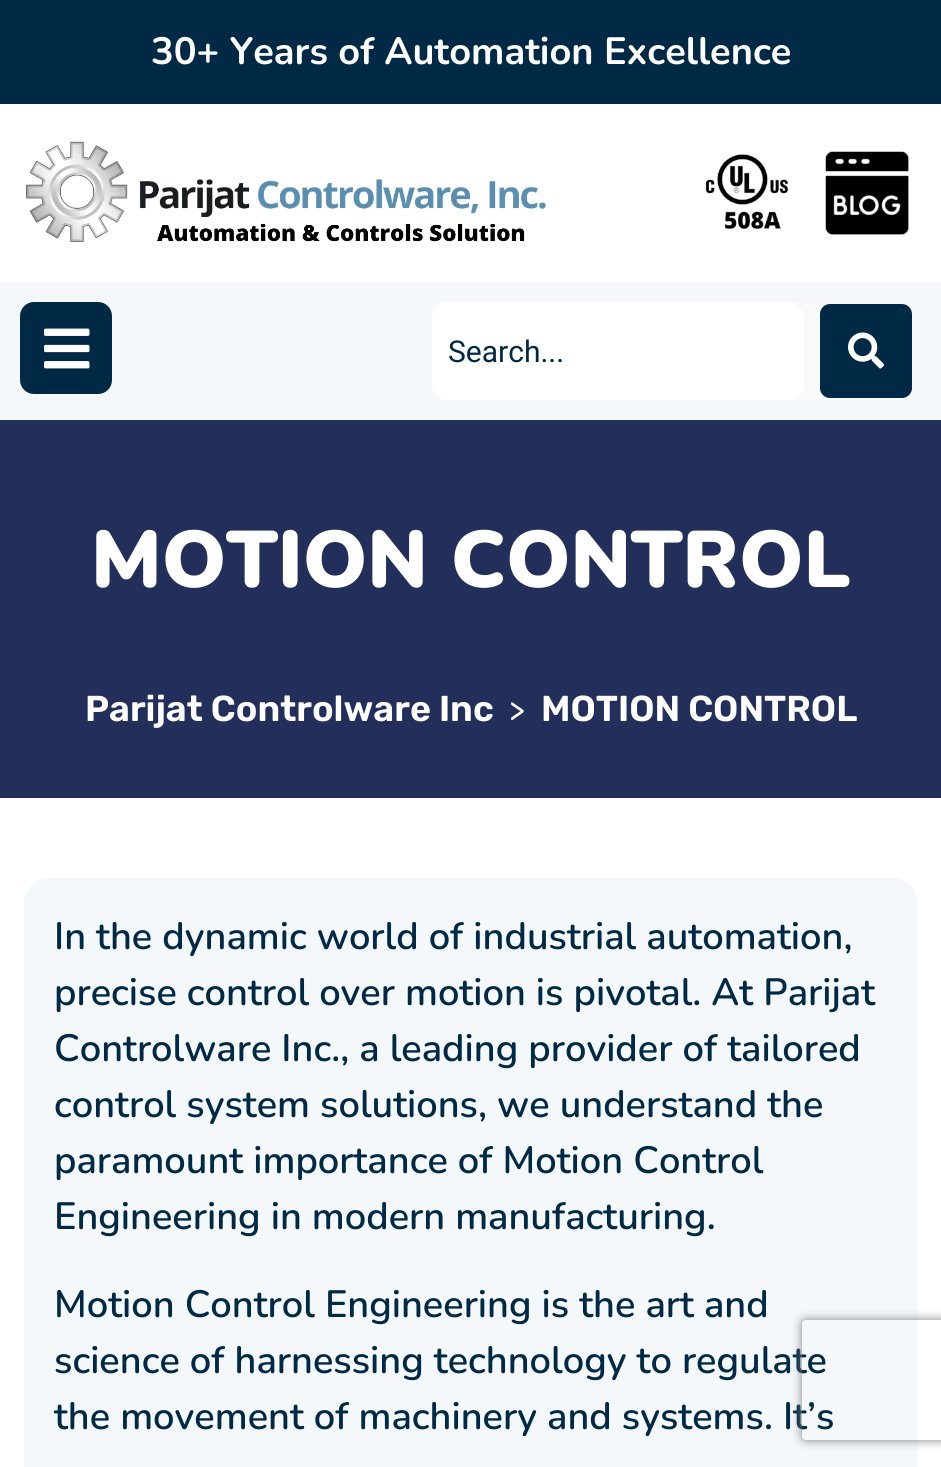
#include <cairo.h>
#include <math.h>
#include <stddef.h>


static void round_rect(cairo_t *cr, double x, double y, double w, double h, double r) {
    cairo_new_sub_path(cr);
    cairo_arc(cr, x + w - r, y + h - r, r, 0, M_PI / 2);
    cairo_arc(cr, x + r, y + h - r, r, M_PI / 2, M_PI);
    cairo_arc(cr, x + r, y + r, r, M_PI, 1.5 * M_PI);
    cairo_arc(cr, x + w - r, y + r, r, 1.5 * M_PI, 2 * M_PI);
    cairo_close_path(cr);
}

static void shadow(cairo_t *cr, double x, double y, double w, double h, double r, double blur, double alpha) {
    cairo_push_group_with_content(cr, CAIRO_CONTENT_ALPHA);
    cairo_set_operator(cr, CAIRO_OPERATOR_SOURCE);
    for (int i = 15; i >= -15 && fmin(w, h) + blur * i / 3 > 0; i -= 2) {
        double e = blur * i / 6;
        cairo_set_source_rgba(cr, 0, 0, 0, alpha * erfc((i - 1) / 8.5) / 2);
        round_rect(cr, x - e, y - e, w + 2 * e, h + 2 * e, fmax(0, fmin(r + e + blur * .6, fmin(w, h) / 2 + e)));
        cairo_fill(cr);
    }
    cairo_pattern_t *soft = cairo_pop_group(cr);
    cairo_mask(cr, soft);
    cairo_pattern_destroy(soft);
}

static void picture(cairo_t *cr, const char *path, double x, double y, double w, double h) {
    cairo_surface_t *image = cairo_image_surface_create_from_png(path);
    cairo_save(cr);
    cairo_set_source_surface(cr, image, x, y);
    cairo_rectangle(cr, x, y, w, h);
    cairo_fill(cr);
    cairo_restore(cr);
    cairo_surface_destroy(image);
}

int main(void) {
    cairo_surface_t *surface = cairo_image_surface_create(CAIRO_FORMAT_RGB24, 941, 1467);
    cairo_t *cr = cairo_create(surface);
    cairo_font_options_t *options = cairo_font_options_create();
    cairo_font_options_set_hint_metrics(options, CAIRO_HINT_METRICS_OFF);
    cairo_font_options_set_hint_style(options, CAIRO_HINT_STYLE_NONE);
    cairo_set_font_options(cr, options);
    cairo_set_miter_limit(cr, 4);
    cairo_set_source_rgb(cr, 1, 1, 1);
    cairo_paint(cr);
    cairo_set_source_rgb(cr, 0, 0.161, 0.271);
    cairo_rectangle(cr, 0, 0, 941, 104);
    cairo_fill(cr);
    cairo_select_font_face(cr, "Nunito", CAIRO_FONT_SLANT_NORMAL, CAIRO_FONT_WEIGHT_BOLD);
    cairo_set_font_size(cr, 38);
    cairo_set_source_rgb(cr, 1, 1, 1);
    cairo_move_to(cr, 151, 64);
    cairo_show_text(cr, "30+ Years of Automation Excellence");
    picture(cr, "img1.png", 26, 141, 520, 101);
    picture(cr, "img2.png", 705, 154, 84, 75);
    picture(cr, "img3.png", 825, 151, 84, 84);
    cairo_set_source_rgb(cr, 0.957, 0.969, 0.98);
    cairo_rectangle(cr, 0, 282, 941, 138);
    cairo_fill(cr);
    cairo_set_source_rgb(cr, 0, 0.161, 0.271);
    round_rect(cr, 20, 302, 92, 92, 14);
    cairo_fill(cr);
    picture(cr, "img4.png", 44, 328, 46, 41);
    cairo_set_source_rgb(cr, 0.973, 0.973, 0.973);
    round_rect(cr, 432, 302, 480, 98, 10);
    cairo_fill(cr);
    cairo_set_source_rgb(cr, 1, 1, 1);
    round_rect(cr, 432, 302, 372, 98, 16);
    cairo_fill(cr);
    cairo_select_font_face(cr, "Roboto", CAIRO_FONT_SLANT_NORMAL, CAIRO_FONT_WEIGHT_NORMAL);
    cairo_set_font_size(cr, 30);
    cairo_set_source_rgb(cr, 0, 0.161, 0.271);
    cairo_move_to(cr, 448, 362);
    cairo_show_text(cr, "Search...");
    round_rect(cr, 820, 304, 92, 94, 10);
    cairo_fill(cr);
    picture(cr, "img5.png", 848, 332, 36, 37);
    cairo_set_source_rgb(cr, 0.133, 0.184, 0.353);
    cairo_rectangle(cr, 0, 420, 941, 378);
    cairo_fill(cr);
    cairo_select_font_face(cr, "Nunito Black", CAIRO_FONT_SLANT_NORMAL, CAIRO_FONT_WEIGHT_NORMAL);
    cairo_set_font_size(cr, 80);
    cairo_set_source_rgb(cr, 1, 1, 1);
    cairo_move_to(cr, 91, 587);
    cairo_show_text(cr, "MOTION CONTROL");
    cairo_select_font_face(cr, "Rubik SemiBold", CAIRO_FONT_SLANT_NORMAL, CAIRO_FONT_WEIGHT_NORMAL);
    cairo_set_font_size(cr, 36);
    cairo_move_to(cr, 85, 721);
    cairo_show_text(cr, "Parijat Controlware Inc");
    cairo_select_font_face(cr, "Rubik", CAIRO_FONT_SLANT_NORMAL, CAIRO_FONT_WEIGHT_NORMAL);
    cairo_set_font_size(cr, 32);
    cairo_move_to(cr, 509, 721);
    cairo_show_text(cr, ">");
    cairo_select_font_face(cr, "Rubik SemiBold", CAIRO_FONT_SLANT_NORMAL, CAIRO_FONT_WEIGHT_NORMAL);
    cairo_set_font_size(cr, 36);
    cairo_move_to(cr, 541, 721);
    cairo_show_text(cr, "MOTION CONTROL");
    cairo_set_source_rgb(cr, 0.957, 0.969, 0.98);
    round_rect(cr, 24, 878, 894, 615, 26);
    cairo_fill(cr);
    cairo_select_font_face(cr, "Nunito SemiBold", CAIRO_FONT_SLANT_NORMAL, CAIRO_FONT_WEIGHT_NORMAL);
    cairo_set_font_size(cr, 38);
    cairo_set_source_rgb(cr, 0, 0.161, 0.271);
    cairo_move_to(cr, 54, 949);
    cairo_show_text(cr, "In the dynamic world of industrial automation,");
    cairo_move_to(cr, 54, 1005);
    cairo_show_text(cr, "precise control over motion is pivotal. At Parijat");
    cairo_move_to(cr, 54, 1061);
    cairo_show_text(cr, "Controlware Inc., a leading provider of tailored");
    cairo_move_to(cr, 54, 1117);
    cairo_show_text(cr, "control system solutions, we understand the");
    cairo_move_to(cr, 54, 1173);
    cairo_show_text(cr, "paramount importance of Motion Control");
    cairo_move_to(cr, 54, 1229);
    cairo_show_text(cr, "Engineering in modern manufacturing.");
    cairo_move_to(cr, 54, 1317);
    cairo_show_text(cr, "Motion Control Engineering is the art and");
    cairo_move_to(cr, 54, 1373);
    cairo_show_text(cr, "science of harnessing technology to regulate");
    cairo_move_to(cr, 54, 1429);
    cairo_show_text(cr, "the movement of machinery and systems. It’s");
    cairo_save(cr);
    cairo_set_fill_rule(cr, CAIRO_FILL_RULE_EVEN_ODD);
    cairo_new_path(cr);
    cairo_move_to(cr, 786, 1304);
    cairo_line_to(cr, 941, 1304);
    cairo_line_to(cr, 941, 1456);
    cairo_line_to(cr, 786, 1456);
    cairo_close_path(cr);
    cairo_move_to(cr, 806, 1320);
    cairo_line_to(cr, 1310, 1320);
    cairo_curve_to(cr, 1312, 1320, 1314, 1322, 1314, 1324);
    cairo_line_to(cr, 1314, 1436);
    cairo_curve_to(cr, 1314, 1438, 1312, 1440, 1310, 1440);
    cairo_line_to(cr, 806, 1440);
    cairo_curve_to(cr, 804, 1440, 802, 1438, 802, 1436);
    cairo_line_to(cr, 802, 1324);
    cairo_curve_to(cr, 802, 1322, 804, 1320, 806, 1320);
    cairo_close_path(cr);
    cairo_clip(cr);
    cairo_set_source_rgb(cr, 0.502, 0.502, 0.502);
    shadow(cr, 802, 1320, 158, 120, 4, 5, 1);
    cairo_restore(cr);
    cairo_surface_write_to_png(surface, "page.png");
    cairo_font_options_destroy(options);
    cairo_destroy(cr);
    cairo_surface_destroy(surface);
    return 0;
}
